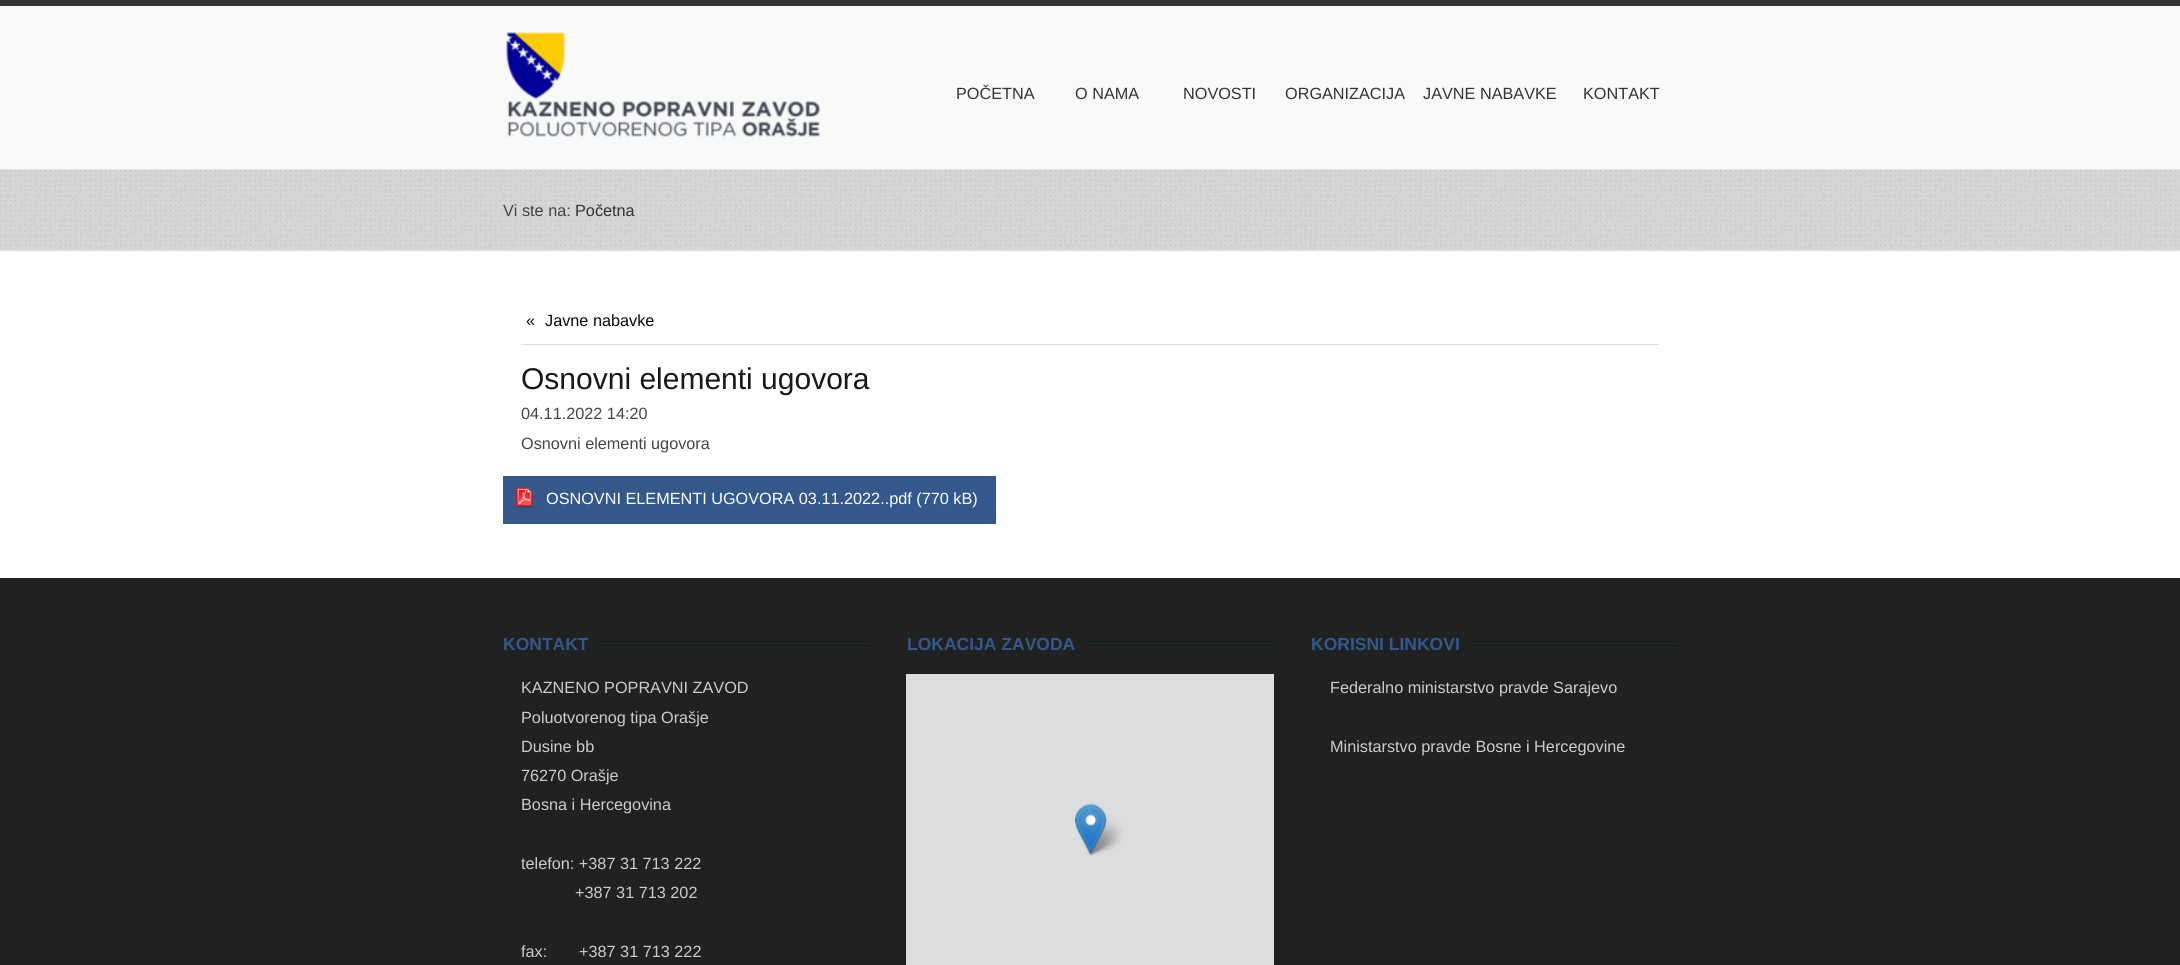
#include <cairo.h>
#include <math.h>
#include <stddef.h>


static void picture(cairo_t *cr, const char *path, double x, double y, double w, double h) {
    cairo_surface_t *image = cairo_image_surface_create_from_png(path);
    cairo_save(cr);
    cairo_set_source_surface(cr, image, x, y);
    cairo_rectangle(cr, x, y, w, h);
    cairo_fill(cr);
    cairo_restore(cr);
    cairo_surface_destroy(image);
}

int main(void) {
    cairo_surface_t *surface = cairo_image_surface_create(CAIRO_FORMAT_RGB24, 2180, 965);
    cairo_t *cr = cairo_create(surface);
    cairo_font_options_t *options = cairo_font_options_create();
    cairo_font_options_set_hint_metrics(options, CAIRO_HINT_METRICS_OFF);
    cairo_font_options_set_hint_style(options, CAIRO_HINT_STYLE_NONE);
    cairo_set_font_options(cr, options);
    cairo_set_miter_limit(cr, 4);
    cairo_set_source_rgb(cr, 1, 1, 1);
    cairo_paint(cr);
    cairo_set_source_rgb(cr, 0.976, 0.976, 0.976);
    cairo_rectangle(cr, 0, 6, 2180, 163);
    cairo_fill(cr);
    cairo_set_source_rgb(cr, 0.2, 0.2, 0.2);
    cairo_rectangle(cr, 0, 0, 2180, 6);
    cairo_fill(cr);
    cairo_set_source_rgb(cr, 0.898, 0.898, 0.898);
    cairo_rectangle(cr, 0, 169, 2180, 1);
    cairo_fill(cr);
    picture(cr, "img1.png", 506, 32, 315, 105);
    cairo_select_font_face(cr, "Liberation Sans", CAIRO_FONT_SLANT_NORMAL, CAIRO_FONT_WEIGHT_NORMAL);
    cairo_set_font_size(cr, 16.25);
    cairo_set_source_rgb(cr, 0.2, 0.2, 0.2);
    cairo_move_to(cr, 956, 99);
    cairo_show_text(cr, "POČETNA");
    cairo_move_to(cr, 1075, 99);
    cairo_show_text(cr, "O NAMA");
    cairo_move_to(cr, 1183, 99);
    cairo_show_text(cr, "NOVOSTI");
    cairo_move_to(cr, 1285, 99);
    cairo_show_text(cr, "ORGANIZACIJA");
    cairo_move_to(cr, 1423, 99);
    cairo_show_text(cr, "JAVNE NABAVKE");
    cairo_move_to(cr, 1583, 99);
    cairo_show_text(cr, "KONTAKT");
    picture(cr, "img2.png", 0, 170, 2180, 82);
    cairo_set_source_rgb(cr, 0.898, 0.898, 0.898);
    cairo_rectangle(cr, 0, 250, 2180, 1);
    cairo_fill(cr);
    cairo_set_source_rgb(cr, 0.267, 0.267, 0.267);
    cairo_move_to(cr, 503, 216);
    cairo_show_text(cr, "Vi ste na:");
    cairo_set_source_rgb(cr, 0.2, 0.2, 0.2);
    cairo_move_to(cr, 575, 216);
    cairo_show_text(cr, "Početna");
    cairo_set_source_rgb(cr, 0.867, 0.867, 0.867);
    cairo_rectangle(cr, 521, 344, 1138, 1);
    cairo_fill(cr);
    cairo_set_source_rgb(cr, 0.039, 0.039, 0.039);
    cairo_move_to(cr, 526, 326);
    cairo_show_text(cr, "«");
    cairo_move_to(cr, 545, 326);
    cairo_show_text(cr, "Javne nabavke");
    cairo_set_font_size(cr, 30);
    cairo_set_source_rgb(cr, 0.094, 0.094, 0.094);
    cairo_move_to(cr, 521, 389);
    cairo_show_text(cr, "Osnovni elementi ugovora");
    cairo_set_font_size(cr, 16.25);
    cairo_set_source_rgb(cr, 0.267, 0.267, 0.267);
    cairo_move_to(cr, 521, 419);
    cairo_show_text(cr, "04.11.2022 14:20");
    cairo_move_to(cr, 521, 449);
    cairo_show_text(cr, "Osnovni elementi ugovora");
    cairo_set_source_rgb(cr, 0.204, 0.341, 0.549);
    cairo_rectangle(cr, 503, 476, 493, 48);
    cairo_fill(cr);
    picture(cr, "img3.png", 516, 487, 17, 21);
    cairo_set_source_rgb(cr, 1, 1, 1);
    cairo_move_to(cr, 546, 504);
    cairo_show_text(cr, "OSNOVNI ELEMENTI UGOVORA 03.11.2022..pdf (770 kB)");
    cairo_set_source_rgb(cr, 0.125, 0.133, 0.133);
    cairo_rectangle(cr, 0, 578, 2180, 387);
    cairo_fill(cr);
    picture(cr, "img4.png", 600, 641, 269, 7);
    cairo_select_font_face(cr, "Liberation Sans", CAIRO_FONT_SLANT_NORMAL, CAIRO_FONT_WEIGHT_BOLD);
    cairo_set_font_size(cr, 17.5);
    cairo_set_source_rgb(cr, 0.204, 0.341, 0.549);
    cairo_move_to(cr, 503, 650);
    cairo_show_text(cr, "KONTAKT");
    cairo_select_font_face(cr, "Liberation Sans", CAIRO_FONT_SLANT_NORMAL, CAIRO_FONT_WEIGHT_NORMAL);
    cairo_set_font_size(cr, 16.25);
    cairo_set_source_rgb(cr, 0.8, 0.8, 0.8);
    cairo_move_to(cr, 521, 693);
    cairo_show_text(cr, "KAZNENO POPRAVNI ZAVOD");
    cairo_move_to(cr, 521, 723);
    cairo_show_text(cr, "Poluotvorenog tipa Orašje");
    cairo_move_to(cr, 521, 752);
    cairo_show_text(cr, "Dusine bb");
    cairo_move_to(cr, 521, 781);
    cairo_show_text(cr, "76270 Orašje");
    cairo_move_to(cr, 521, 810);
    cairo_show_text(cr, "Bosna i Hercegovina");
    cairo_move_to(cr, 521, 869);
    cairo_show_text(cr, "telefon: +387 31 713 222");
    cairo_move_to(cr, 575, 898);
    cairo_show_text(cr, "+387 31 713 202");
    cairo_move_to(cr, 521, 957);
    cairo_show_text(cr, "fax:");
    cairo_move_to(cr, 579, 957);
    cairo_show_text(cr, "+387 31 713 222");
    picture(cr, "img5.png", 1088, 641, 186, 7);
    cairo_select_font_face(cr, "Liberation Sans", CAIRO_FONT_SLANT_NORMAL, CAIRO_FONT_WEIGHT_BOLD);
    cairo_set_font_size(cr, 17.5);
    cairo_set_source_rgb(cr, 0.204, 0.341, 0.549);
    cairo_move_to(cr, 907, 650);
    cairo_show_text(cr, "LOKACIJA ZAVODA");
    cairo_set_source_rgb(cr, 0.867, 0.867, 0.867);
    cairo_rectangle(cr, 906, 674, 368, 291);
    cairo_fill(cr);
    picture(cr, "img7.png", 1086, 819, 38, 37);
    picture(cr, "img6.png", 1075, 803, 32, 53);
    picture(cr, "img8.png", 1473, 641, 204, 7);
    cairo_set_source_rgb(cr, 0.204, 0.341, 0.549);
    cairo_move_to(cr, 1311, 650);
    cairo_show_text(cr, "KORISNI LINKOVI");
    cairo_select_font_face(cr, "Liberation Sans", CAIRO_FONT_SLANT_NORMAL, CAIRO_FONT_WEIGHT_NORMAL);
    cairo_set_font_size(cr, 16.25);
    cairo_set_source_rgb(cr, 0.8, 0.8, 0.8);
    cairo_move_to(cr, 1330, 693);
    cairo_show_text(cr, "Federalno ministarstvo pravde Sarajevo");
    cairo_move_to(cr, 1330, 752);
    cairo_show_text(cr, "Ministarstvo pravde Bosne i Hercegovine");
    cairo_surface_write_to_png(surface, "page.png");
    cairo_font_options_destroy(options);
    cairo_destroy(cr);
    cairo_surface_destroy(surface);
    return 0;
}
